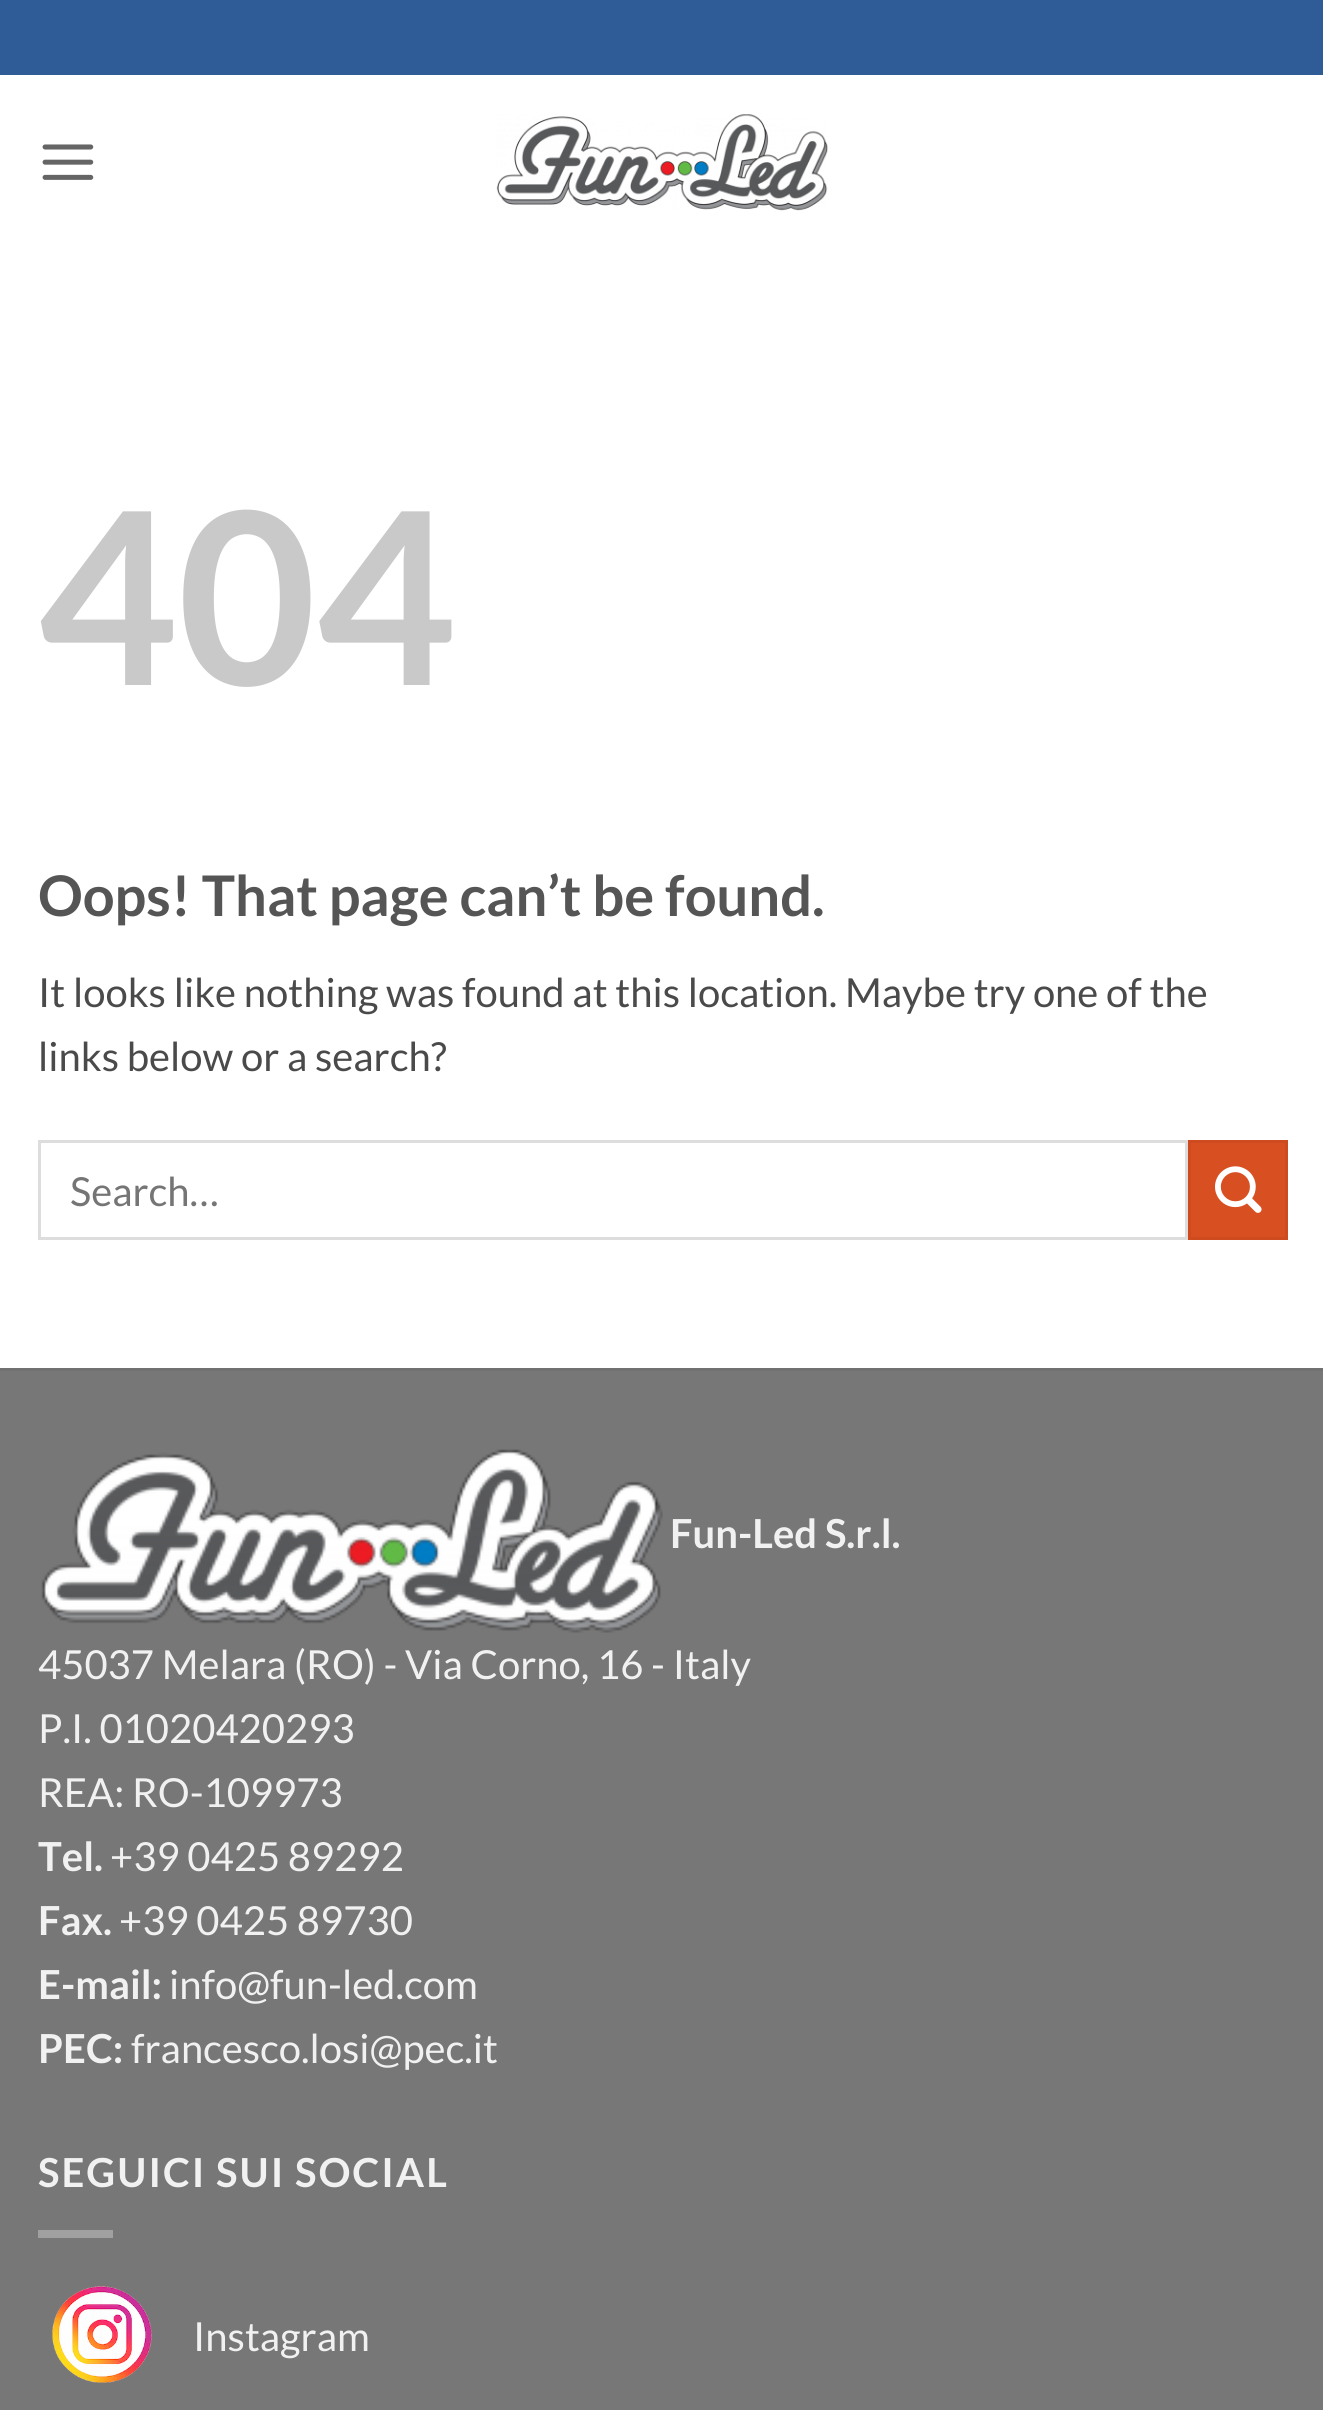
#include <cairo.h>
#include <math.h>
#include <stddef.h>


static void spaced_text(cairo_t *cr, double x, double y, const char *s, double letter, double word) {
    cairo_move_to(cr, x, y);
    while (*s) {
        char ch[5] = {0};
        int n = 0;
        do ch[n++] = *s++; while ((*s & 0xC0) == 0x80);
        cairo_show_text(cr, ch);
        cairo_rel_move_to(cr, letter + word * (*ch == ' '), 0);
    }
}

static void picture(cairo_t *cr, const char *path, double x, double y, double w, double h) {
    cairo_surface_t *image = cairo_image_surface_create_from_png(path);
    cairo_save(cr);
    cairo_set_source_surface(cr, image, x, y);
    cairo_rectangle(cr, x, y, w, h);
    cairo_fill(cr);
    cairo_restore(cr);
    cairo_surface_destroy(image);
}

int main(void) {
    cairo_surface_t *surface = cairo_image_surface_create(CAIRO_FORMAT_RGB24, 1323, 2410);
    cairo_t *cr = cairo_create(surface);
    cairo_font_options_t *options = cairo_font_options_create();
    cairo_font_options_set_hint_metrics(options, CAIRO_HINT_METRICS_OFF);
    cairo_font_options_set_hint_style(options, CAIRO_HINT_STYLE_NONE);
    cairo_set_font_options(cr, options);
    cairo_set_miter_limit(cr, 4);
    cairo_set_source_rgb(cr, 1, 1, 1);
    cairo_paint(cr);
    cairo_set_source_rgb(cr, 0.184, 0.361, 0.592);
    cairo_rectangle(cr, 0, 0, 1323, 75);
    cairo_fill(cr);
    picture(cr, "img1.png", 42, 144, 52, 36);
    picture(cr, "img2.png", 496, 114, 332, 97);
    cairo_select_font_face(cr, "Lato", CAIRO_FONT_SLANT_NORMAL, CAIRO_FONT_WEIGHT_BOLD);
    cairo_set_font_size(cr, 240);
    cairo_set_source_rgb(cr, 0.788, 0.788, 0.788);
    cairo_move_to(cr, 38, 685);
    cairo_show_text(cr, "404");
    cairo_set_font_size(cr, 56);
    cairo_set_source_rgb(cr, 0.333, 0.333, 0.333);
    cairo_move_to(cr, 38, 916);
    cairo_show_text(cr, "Oops! That page can’t be found.");
    cairo_select_font_face(cr, "Lato", CAIRO_FONT_SLANT_NORMAL, CAIRO_FONT_WEIGHT_NORMAL);
    cairo_set_font_size(cr, 40);
    cairo_set_source_rgb(cr, 0.29, 0.29, 0.29);
    cairo_move_to(cr, 38, 1007);
    cairo_show_text(cr, "It looks like nothing was found at this location. Maybe try one of the");
    cairo_move_to(cr, 38, 1071);
    cairo_show_text(cr, "links below or a search?");
    cairo_rectangle(cr, 39.5, 1141.5, 1147, 97);
    cairo_set_source_rgb(cr, 0.867, 0.867, 0.867);
    cairo_set_line_width(cr, 3);
    cairo_stroke(cr);
    cairo_set_source_rgb(cr, 0.459, 0.459, 0.459);
    cairo_move_to(cr, 70, 1206);
    cairo_show_text(cr, "Search…");
    cairo_set_source_rgb(cr, 0.847, 0.31, 0.129);
    cairo_rectangle(cr, 1189.5, 1141.5, 97, 97);
    cairo_fill_preserve(cr);
    cairo_set_source_rgb(cr, 0.804, 0.294, 0.122);
    cairo_stroke(cr);
    picture(cr, "img3.png", 1215, 1166, 47, 47);
    cairo_set_source_rgb(cr, 0.467, 0.467, 0.467);
    cairo_rectangle(cr, 0, 1371, 1323, 1039);
    cairo_fill(cr);
    cairo_set_source_rgb(cr, 0.443, 0.443, 0.443);
    cairo_rectangle(cr, 0, 1368, 1323, 3);
    cairo_fill(cr);
    picture(cr, "img4.png", 41, 1449, 622, 184);
    cairo_select_font_face(cr, "Lato", CAIRO_FONT_SLANT_NORMAL, CAIRO_FONT_WEIGHT_BOLD);
    cairo_set_source_rgb(cr, 0.945, 0.945, 0.945);
    cairo_move_to(cr, 670, 1548);
    cairo_show_text(cr, "Fun-Led S.r.l.");
    cairo_select_font_face(cr, "Lato", CAIRO_FONT_SLANT_NORMAL, CAIRO_FONT_WEIGHT_NORMAL);
    cairo_move_to(cr, 38, 1679);
    cairo_show_text(cr, "45037 Melara (RO) - Via Corno, 16 - Italy");
    cairo_move_to(cr, 38, 1743);
    cairo_show_text(cr, "P.I. 01020420293");
    cairo_move_to(cr, 38, 1807);
    cairo_show_text(cr, "REA: RO-109973");
    cairo_select_font_face(cr, "Lato", CAIRO_FONT_SLANT_NORMAL, CAIRO_FONT_WEIGHT_BOLD);
    cairo_move_to(cr, 38, 1871);
    cairo_show_text(cr, "Tel.");
    cairo_select_font_face(cr, "Lato", CAIRO_FONT_SLANT_NORMAL, CAIRO_FONT_WEIGHT_NORMAL);
    cairo_move_to(cr, 110, 1871);
    cairo_show_text(cr, "+39 0425 89292");
    cairo_select_font_face(cr, "Lato", CAIRO_FONT_SLANT_NORMAL, CAIRO_FONT_WEIGHT_BOLD);
    cairo_move_to(cr, 38, 1935);
    cairo_show_text(cr, "Fax.");
    cairo_select_font_face(cr, "Lato", CAIRO_FONT_SLANT_NORMAL, CAIRO_FONT_WEIGHT_NORMAL);
    cairo_move_to(cr, 119, 1935);
    cairo_show_text(cr, "+39 0425 89730");
    cairo_select_font_face(cr, "Lato", CAIRO_FONT_SLANT_NORMAL, CAIRO_FONT_WEIGHT_BOLD);
    cairo_move_to(cr, 38, 1999);
    cairo_show_text(cr, "E-mail:");
    cairo_select_font_face(cr, "Lato", CAIRO_FONT_SLANT_NORMAL, CAIRO_FONT_WEIGHT_NORMAL);
    cairo_move_to(cr, 169, 1999);
    cairo_show_text(cr, "info@fun-led.com");
    cairo_select_font_face(cr, "Lato", CAIRO_FONT_SLANT_NORMAL, CAIRO_FONT_WEIGHT_BOLD);
    cairo_move_to(cr, 38, 2063);
    cairo_show_text(cr, "PEC:");
    cairo_select_font_face(cr, "Lato", CAIRO_FONT_SLANT_NORMAL, CAIRO_FONT_WEIGHT_NORMAL);
    cairo_move_to(cr, 131, 2063);
    cairo_show_text(cr, "francesco.losi@pec.it");
    cairo_select_font_face(cr, "Lato", CAIRO_FONT_SLANT_NORMAL, CAIRO_FONT_WEIGHT_BOLD);
    spaced_text(cr, 38, 2187, "SEGUICI SUI SOCIAL", 2, 0);
    cairo_set_source_rgb(cr, 0.627, 0.627, 0.627);
    cairo_rectangle(cr, 38, 2230, 75, 8);
    cairo_fill(cr);
    picture(cr, "img5.png", 52, 2286, 100, 97);
    cairo_select_font_face(cr, "Lato", CAIRO_FONT_SLANT_NORMAL, CAIRO_FONT_WEIGHT_NORMAL);
    cairo_set_source_rgb(cr, 0.945, 0.945, 0.945);
    cairo_move_to(cr, 193, 2351);
    cairo_show_text(cr, "Instagram");
    cairo_surface_write_to_png(surface, "page.png");
    cairo_font_options_destroy(options);
    cairo_destroy(cr);
    cairo_surface_destroy(surface);
    return 0;
}
